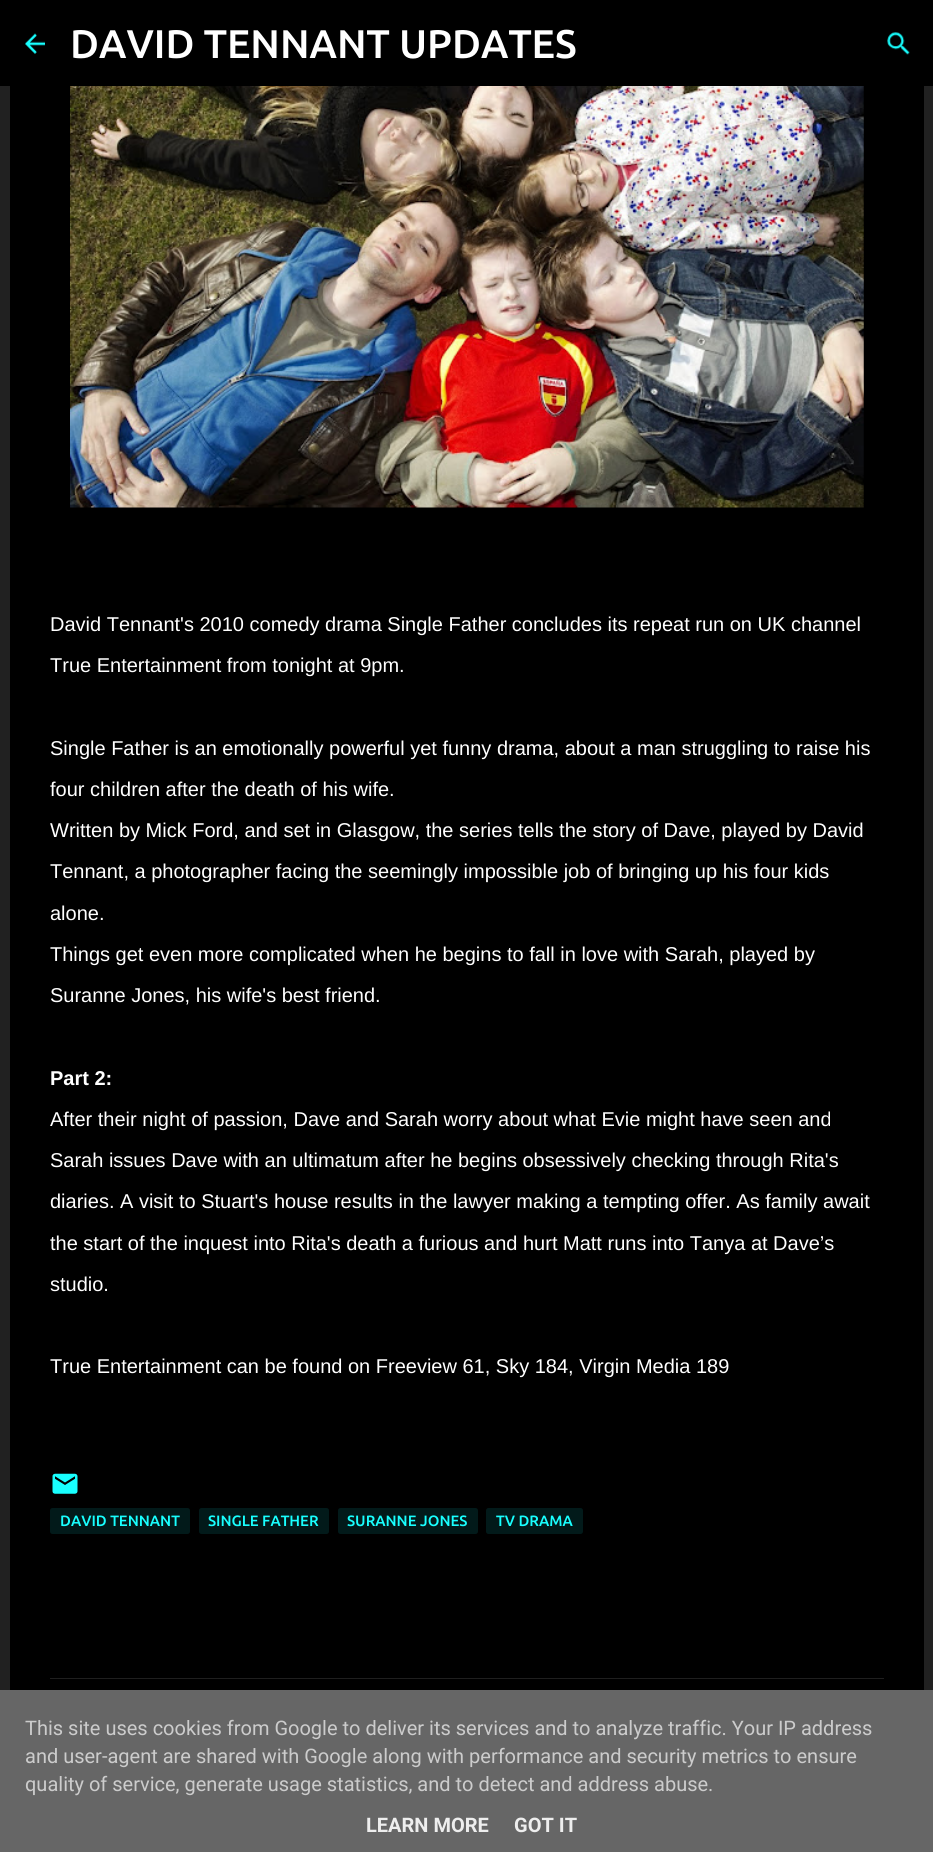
#include <cairo.h>
#include <math.h>
#include <stddef.h>


static void round_rect(cairo_t *cr, double x, double y, double w, double h, double r) {
    cairo_new_sub_path(cr);
    cairo_arc(cr, x + w - r, y + h - r, r, 0, M_PI / 2);
    cairo_arc(cr, x + r, y + h - r, r, M_PI / 2, M_PI);
    cairo_arc(cr, x + r, y + r, r, M_PI, 1.5 * M_PI);
    cairo_arc(cr, x + w - r, y + r, r, 1.5 * M_PI, 2 * M_PI);
    cairo_close_path(cr);
}

static void picture(cairo_t *cr, const char *path, double x, double y, double w, double h) {
    cairo_surface_t *image = cairo_image_surface_create_from_png(path);
    cairo_save(cr);
    cairo_set_source_surface(cr, image, x, y);
    cairo_rectangle(cr, x, y, w, h);
    cairo_fill(cr);
    cairo_restore(cr);
    cairo_surface_destroy(image);
}

int main(void) {
    cairo_surface_t *surface = cairo_image_surface_create(CAIRO_FORMAT_RGB24, 933, 1852);
    cairo_t *cr = cairo_create(surface);
    cairo_font_options_t *options = cairo_font_options_create();
    cairo_font_options_set_hint_metrics(options, CAIRO_HINT_METRICS_OFF);
    cairo_font_options_set_hint_style(options, CAIRO_HINT_STYLE_NONE);
    cairo_set_font_options(cr, options);
    cairo_set_miter_limit(cr, 4);
    cairo_set_source_rgb(cr, 0.129, 0.129, 0.129);
    cairo_paint(cr);
    cairo_set_source_rgb(cr, 0, 0, 0);
    cairo_rectangle(cr, 0, 0, 933, 86);
    cairo_fill(cr);
    picture(cr, "img1.png", 25, 33, 20, 21);
    cairo_select_font_face(cr, "Ubuntu Medium", CAIRO_FONT_SLANT_NORMAL, CAIRO_FONT_WEIGHT_NORMAL);
    cairo_set_font_size(cr, 40);
    cairo_set_source_rgb(cr, 1, 1, 1);
    cairo_move_to(cr, 70, 58);
    cairo_show_text(cr, "DAVID TENNANT UPDATES");
    picture(cr, "img2.png", 887, 32, 23, 23);
    cairo_set_source_rgb(cr, 0, 0, 0);
    cairo_rectangle(cr, 10, 86, 914, 1604);
    cairo_fill(cr);
    cairo_set_source_rgb(cr, 0.122, 0.122, 0.122);
    cairo_rectangle(cr, 50, 1678, 834, 1);
    cairo_fill(cr);
    picture(cr, "img3.png", 70, 86, 794, 422);
    cairo_select_font_face(cr, "Liberation Sans", CAIRO_FONT_SLANT_NORMAL, CAIRO_FONT_WEIGHT_NORMAL);
    cairo_set_font_size(cr, 20);
    cairo_set_source_rgb(cr, 1, 1, 1);
    cairo_move_to(cr, 50, 631);
    cairo_show_text(cr, "David Tennant's 2010 comedy drama Single Father concludes its repeat run on UK channel");
    cairo_move_to(cr, 50, 672);
    cairo_show_text(cr, "True Entertainment from tonight at 9pm.");
    cairo_move_to(cr, 50, 755);
    cairo_show_text(cr, "Single Father is an emotionally powerful yet funny drama, about a man struggling to raise his");
    cairo_move_to(cr, 50, 796);
    cairo_show_text(cr, "four children after the death of his wife.");
    cairo_move_to(cr, 50, 837);
    cairo_show_text(cr, "Written by Mick Ford, and set in Glasgow, the series tells the story of Dave, played by David");
    cairo_move_to(cr, 50, 878);
    cairo_show_text(cr, "Tennant, a photographer facing the seemingly impossible job of bringing up his four kids");
    cairo_move_to(cr, 50, 920);
    cairo_show_text(cr, "alone.");
    cairo_move_to(cr, 50, 961);
    cairo_show_text(cr, "Things get even more complicated when he begins to fall in love with Sarah, played by");
    cairo_move_to(cr, 50, 1002);
    cairo_show_text(cr, "Suranne Jones, his wife's best friend.");
    cairo_select_font_face(cr, "Liberation Sans", CAIRO_FONT_SLANT_NORMAL, CAIRO_FONT_WEIGHT_BOLD);
    cairo_move_to(cr, 50, 1085);
    cairo_show_text(cr, "Part 2:");
    cairo_select_font_face(cr, "Liberation Sans", CAIRO_FONT_SLANT_NORMAL, CAIRO_FONT_WEIGHT_NORMAL);
    cairo_move_to(cr, 50, 1126);
    cairo_show_text(cr, "After their night of passion, Dave and Sarah worry about what Evie might have seen and");
    cairo_move_to(cr, 50, 1167);
    cairo_show_text(cr, "Sarah issues Dave with an ultimatum after he begins obsessively checking through Rita's");
    cairo_move_to(cr, 50, 1208);
    cairo_show_text(cr, "diaries. A visit to Stuart's house results in the lawyer making a tempting offer. As family await");
    cairo_move_to(cr, 50, 1250);
    cairo_show_text(cr, "the start of the inquest into Rita's death a furious and hurt Matt runs into Tanya at Dave’s");
    cairo_move_to(cr, 50, 1291);
    cairo_show_text(cr, "studio.");
    cairo_move_to(cr, 50, 1373);
    cairo_show_text(cr, "True Entertainment can be found on Freeview 61, Sky 184, Virgin Media 189");
    picture(cr, "img4.png", 52, 1473, 26, 21);
    cairo_set_source_rgb(cr, 0.008, 0.102, 0.102);
    round_rect(cr, 50, 1508, 140, 26, 2.5);
    cairo_fill(cr);
    cairo_select_font_face(cr, "Ubuntu Medium", CAIRO_FONT_SLANT_NORMAL, CAIRO_FONT_WEIGHT_NORMAL);
    cairo_set_font_size(cr, 15);
    cairo_set_source_rgb(cr, 0.094, 1, 1);
    cairo_move_to(cr, 60, 1526);
    cairo_show_text(cr, "DAVID TENNANT");
    cairo_set_source_rgb(cr, 0.008, 0.102, 0.102);
    round_rect(cr, 199, 1508, 130, 26, 2.5);
    cairo_fill(cr);
    cairo_set_source_rgb(cr, 0.094, 1, 1);
    cairo_move_to(cr, 208, 1526);
    cairo_show_text(cr, "SINGLE FATHER");
    cairo_set_source_rgb(cr, 0.008, 0.102, 0.102);
    round_rect(cr, 338, 1508, 140, 26, 2.5);
    cairo_fill(cr);
    cairo_set_source_rgb(cr, 0.094, 1, 1);
    cairo_move_to(cr, 347, 1526);
    cairo_show_text(cr, "SURANNE JONES");
    cairo_set_source_rgb(cr, 0.008, 0.102, 0.102);
    round_rect(cr, 486, 1508, 97, 26, 2.5);
    cairo_fill(cr);
    cairo_set_source_rgb(cr, 0.094, 1, 1);
    cairo_move_to(cr, 496, 1526);
    cairo_show_text(cr, "TV DRAMA");
    cairo_set_source_rgb(cr, 0.4, 0.4, 0.4);
    cairo_rectangle(cr, 0, 1690, 933, 162);
    cairo_fill(cr);
    cairo_select_font_face(cr, "Roboto", CAIRO_FONT_SLANT_NORMAL, CAIRO_FONT_WEIGHT_NORMAL);
    cairo_set_font_size(cr, 20);
    cairo_set_source_rgb(cr, 0.8, 0.8, 0.8);
    cairo_move_to(cr, 25, 1735);
    cairo_show_text(cr, "This site uses cookies from Google to deliver its services and to analyze traffic. Your IP address");
    cairo_move_to(cr, 25, 1763);
    cairo_show_text(cr, "and user-agent are shared with Google along with performance and security metrics to ensure");
    cairo_move_to(cr, 25, 1791);
    cairo_show_text(cr, "quality of service, generate usage statistics, and to detect and address abuse.");
    cairo_select_font_face(cr, "Roboto", CAIRO_FONT_SLANT_NORMAL, CAIRO_FONT_WEIGHT_BOLD);
    cairo_set_source_rgb(cr, 0.933, 0.933, 0.933);
    cairo_move_to(cr, 366, 1832);
    cairo_show_text(cr, "LEARN MORE");
    cairo_move_to(cr, 514, 1832);
    cairo_show_text(cr, "GOT IT");
    cairo_surface_write_to_png(surface, "page.png");
    cairo_font_options_destroy(options);
    cairo_destroy(cr);
    cairo_surface_destroy(surface);
    return 0;
}
